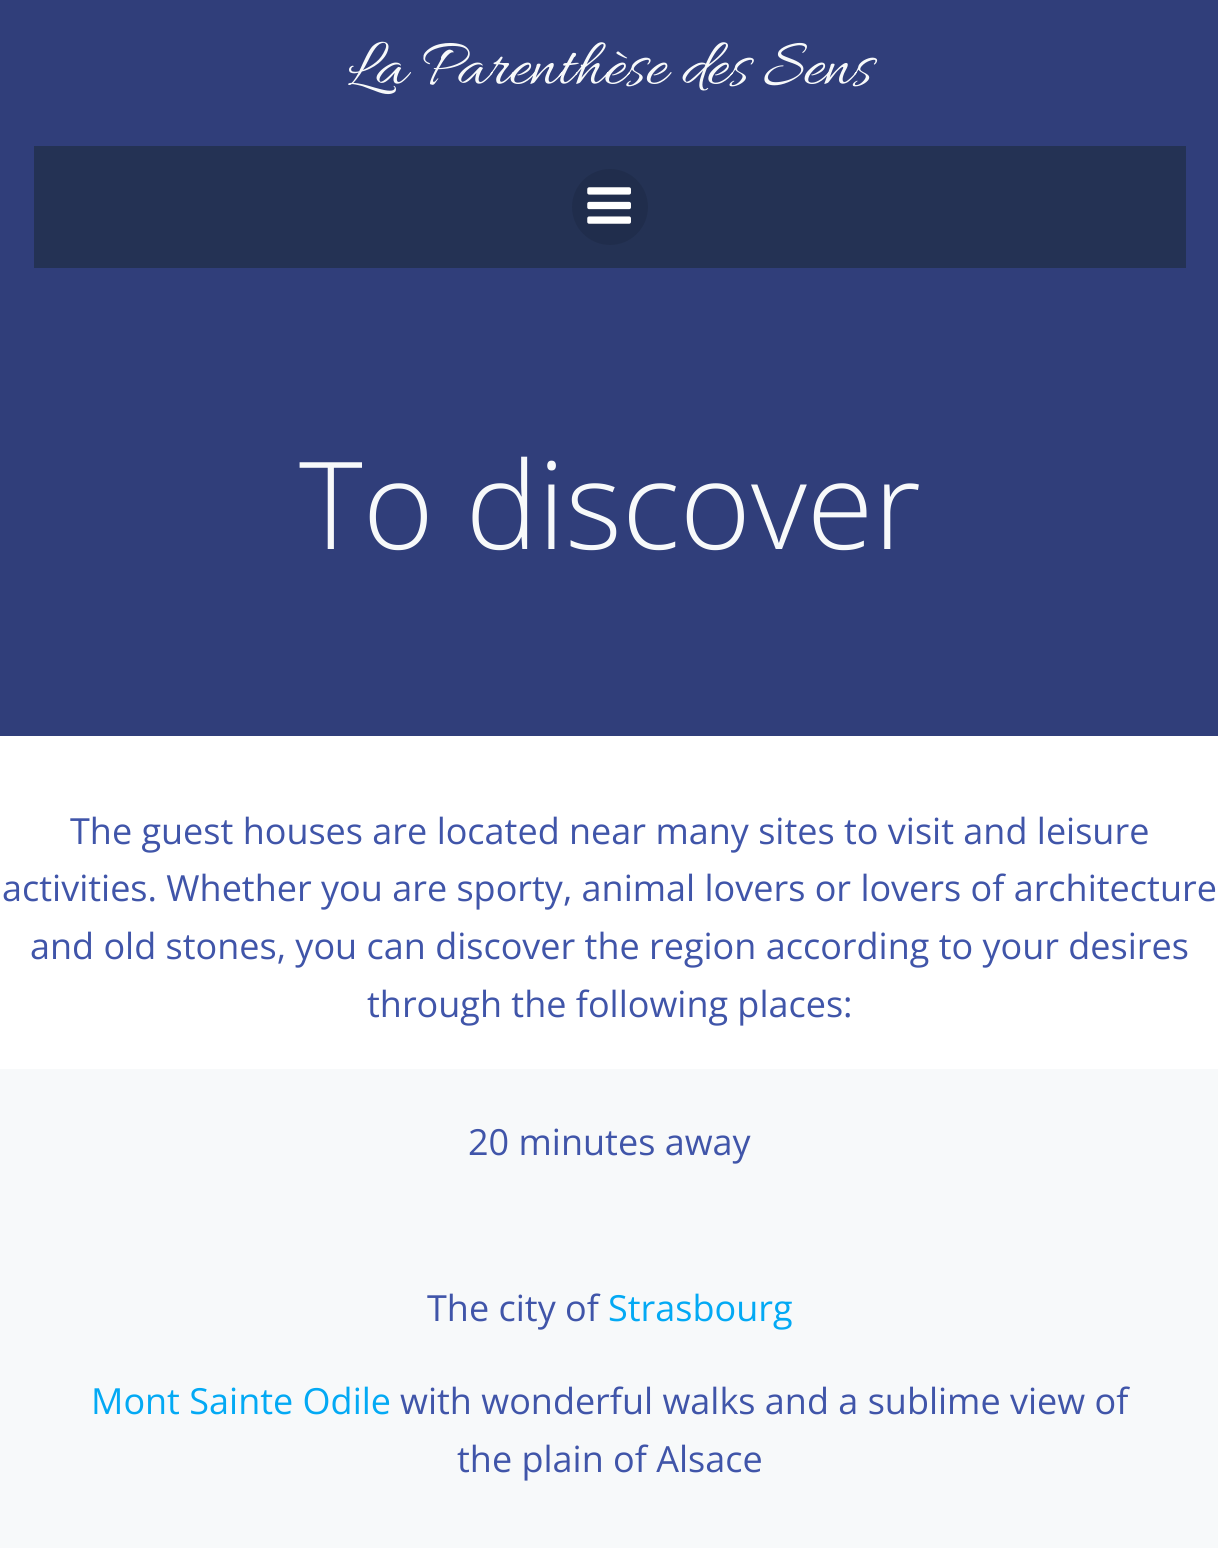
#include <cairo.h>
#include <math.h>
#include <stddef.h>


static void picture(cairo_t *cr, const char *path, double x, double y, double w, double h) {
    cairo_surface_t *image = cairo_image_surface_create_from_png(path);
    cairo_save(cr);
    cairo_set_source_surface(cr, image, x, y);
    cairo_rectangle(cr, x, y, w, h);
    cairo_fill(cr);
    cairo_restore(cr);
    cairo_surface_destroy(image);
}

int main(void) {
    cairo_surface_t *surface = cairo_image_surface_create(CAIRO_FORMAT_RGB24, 1218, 1548);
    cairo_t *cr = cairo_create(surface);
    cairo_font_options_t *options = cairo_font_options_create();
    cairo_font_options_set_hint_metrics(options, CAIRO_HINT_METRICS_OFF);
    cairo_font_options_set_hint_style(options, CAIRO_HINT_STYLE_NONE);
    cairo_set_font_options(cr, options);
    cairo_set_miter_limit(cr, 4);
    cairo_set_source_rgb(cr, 1, 1, 1);
    cairo_paint(cr);
    cairo_set_source_rgb(cr, 0.188, 0.243, 0.478);
    cairo_rectangle(cr, 0, 0, 1218, 736);
    cairo_fill(cr);
    cairo_select_font_face(cr, "Allura", CAIRO_FONT_SLANT_NORMAL, CAIRO_FONT_WEIGHT_NORMAL);
    cairo_set_font_size(cr, 67.5);
    cairo_set_source_rgb(cr, 0.965, 0.973, 0.98);
    cairo_move_to(cr, 348, 83);
    cairo_show_text(cr, "La Parenthèse des Sens");
    cairo_set_source_rgb(cr, 0.141, 0.196, 0.329);
    cairo_rectangle(cr, 34, 146, 1152, 122);
    cairo_fill(cr);
    cairo_set_source_rgb(cr, 0.125, 0.176, 0.298);
    cairo_arc(cr, 610, 207, 38, 0, 2 * M_PI);
    cairo_fill(cr);
    picture(cr, "img1.png", 587, 187, 44, 37);
    cairo_select_font_face(cr, "Open Sans Light", CAIRO_FONT_SLANT_NORMAL, CAIRO_FONT_WEIGHT_NORMAL);
    cairo_set_font_size(cr, 121.5);
    cairo_set_source_rgb(cr, 0.965, 0.973, 0.98);
    cairo_move_to(cr, 299, 549);
    cairo_show_text(cr, "To discover");
    cairo_select_font_face(cr, "Open Sans", CAIRO_FONT_SLANT_NORMAL, CAIRO_FONT_WEIGHT_NORMAL);
    cairo_set_font_size(cr, 36);
    cairo_set_source_rgb(cr, 0.251, 0.333, 0.663);
    cairo_move_to(cr, 70, 844);
    cairo_show_text(cr, "The guest houses are located near many sites to visit and leisure");
    cairo_move_to(cr, 2, 901);
    cairo_show_text(cr, "activities. Whether you are sporty, animal lovers or lovers of architecture");
    cairo_move_to(cr, 30, 959);
    cairo_show_text(cr, "and old stones, you can discover the region according to your desires");
    cairo_move_to(cr, 367, 1017);
    cairo_show_text(cr, "through the following places:");
    cairo_set_source_rgb(cr, 0.965, 0.973, 0.98);
    cairo_rectangle(cr, 0, 1069, 1218, 479);
    cairo_fill(cr);
    cairo_set_source_rgb(cr, 0.251, 0.333, 0.663);
    cairo_move_to(cr, 468, 1155);
    cairo_show_text(cr, "20 minutes away");
    cairo_move_to(cr, 427, 1321);
    cairo_show_text(cr, "The city of");
    cairo_set_source_rgb(cr, 0.012, 0.663, 0.957);
    cairo_move_to(cr, 608, 1321);
    cairo_show_text(cr, "Strasbourg");
    cairo_move_to(cr, 91, 1414);
    cairo_show_text(cr, "Mont Sainte Odile");
    cairo_set_source_rgb(cr, 0.251, 0.333, 0.663);
    cairo_move_to(cr, 400, 1414);
    cairo_show_text(cr, "with wonderful walks and a sublime view of");
    cairo_move_to(cr, 457, 1472);
    cairo_show_text(cr, "the plain of Alsace");
    cairo_surface_write_to_png(surface, "page.png");
    cairo_font_options_destroy(options);
    cairo_destroy(cr);
    cairo_surface_destroy(surface);
    return 0;
}
